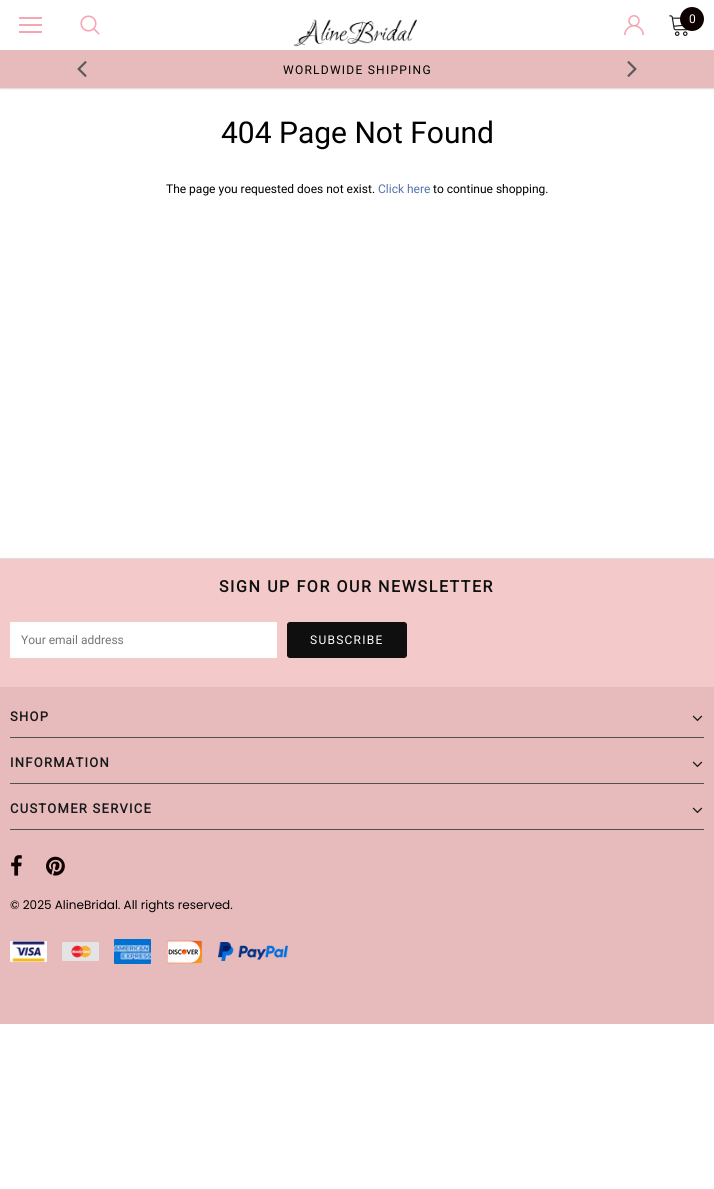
#include <cairo.h>
#include <math.h>
#include <stddef.h>


static void spaced_text(cairo_t *cr, double x, double y, const char *s, double letter, double word) {
    cairo_move_to(cr, x, y);
    while (*s) {
        char ch[5] = {0};
        int n = 0;
        do ch[n++] = *s++; while ((*s & 0xC0) == 0x80);
        cairo_show_text(cr, ch);
        cairo_rel_move_to(cr, letter + word * (*ch == ' '), 0);
    }
}

static void round_rect(cairo_t *cr, double x, double y, double w, double h, double r) {
    cairo_new_sub_path(cr);
    cairo_arc(cr, x + w - r, y + h - r, r, 0, M_PI / 2);
    cairo_arc(cr, x + r, y + h - r, r, M_PI / 2, M_PI);
    cairo_arc(cr, x + r, y + r, r, M_PI, 1.5 * M_PI);
    cairo_arc(cr, x + w - r, y + r, r, 1.5 * M_PI, 2 * M_PI);
    cairo_close_path(cr);
}

static void shadow(cairo_t *cr, double x, double y, double w, double h, double r, double blur, double alpha) {
    cairo_push_group_with_content(cr, CAIRO_CONTENT_ALPHA);
    cairo_set_operator(cr, CAIRO_OPERATOR_SOURCE);
    for (int i = 15; i >= -15 && fmin(w, h) + blur * i / 3 > 0; i -= 2) {
        double e = blur * i / 6;
        cairo_set_source_rgba(cr, 0, 0, 0, alpha * erfc((i - 1) / 8.5) / 2);
        round_rect(cr, x - e, y - e, w + 2 * e, h + 2 * e, fmax(0, fmin(r + e + blur * .6, fmin(w, h) / 2 + e)));
        cairo_fill(cr);
    }
    cairo_pattern_t *soft = cairo_pop_group(cr);
    cairo_mask(cr, soft);
    cairo_pattern_destroy(soft);
}

static void picture(cairo_t *cr, const char *path, double x, double y, double w, double h) {
    cairo_surface_t *image = cairo_image_surface_create_from_png(path);
    cairo_save(cr);
    cairo_set_source_surface(cr, image, x, y);
    cairo_rectangle(cr, x, y, w, h);
    cairo_fill(cr);
    cairo_restore(cr);
    cairo_surface_destroy(image);
}

int main(void) {
    cairo_surface_t *surface = cairo_image_surface_create(CAIRO_FORMAT_RGB24, 714, 1189);
    cairo_t *cr = cairo_create(surface);
    cairo_font_options_t *options = cairo_font_options_create();
    cairo_font_options_set_hint_metrics(options, CAIRO_HINT_METRICS_OFF);
    cairo_font_options_set_hint_style(options, CAIRO_HINT_STYLE_NONE);
    cairo_set_font_options(cr, options);
    cairo_set_miter_limit(cr, 4);
    cairo_set_source_rgb(cr, 1, 1, 1);
    cairo_paint(cr);
    picture(cr, "img1.png", 669, 15, 19, 21);
    cairo_set_source_rgb(cr, 0.055, 0.004, 0.004);
    cairo_arc(cr, 692, 19, 12, 0, 2 * M_PI);
    cairo_fill(cr);
    cairo_select_font_face(cr, "Roboto", CAIRO_FONT_SLANT_NORMAL, CAIRO_FONT_WEIGHT_NORMAL);
    cairo_set_font_size(cr, 12);
    cairo_set_source_rgb(cr, 1, 1, 1);
    cairo_move_to(cr, 689, 23);
    cairo_show_text(cr, "0");
    cairo_set_source_rgb(cr, 0, 0, 0);
    shadow(cr, 0, 51, 714, 38, 0, 1, 0.1);
    cairo_rectangle(cr, -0.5, 49.5, 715, 39);
    cairo_set_source_rgba(cr, 0, 0, 0, 0.06);
    cairo_set_line_width(cr, 1);
    cairo_stroke(cr);
    cairo_set_source_rgb(cr, 1, 1, 1);
    cairo_rectangle(cr, 0, 49, 714, 1);
    cairo_fill(cr);
    cairo_set_source_rgb(cr, 0.961, 0.651, 0.702);
    cairo_rectangle(cr, 19, 24, 23, 2);
    cairo_fill(cr);
    cairo_rectangle(cr, 19, 17, 23, 2);
    cairo_fill(cr);
    cairo_rectangle(cr, 19, 31, 23, 2);
    cairo_fill(cr);
    picture(cr, "img2.png", 80, 15, 20, 20);
    picture(cr, "img3.png", 294, 19, 123, 28);
    picture(cr, "img4.png", 624, 15, 20, 20);
    cairo_set_source_rgb(cr, 0.906, 0.733, 0.733);
    cairo_rectangle(cr, 0, 50, 714, 38);
    cairo_fill(cr);
    picture(cr, "img5.png", 77, 61, 10, 16);
    cairo_set_source_rgb(cr, 0, 0, 0);
    spaced_text(cr, 283, 74, "WORLDWIDE SHIPPING", 1.25, 0);
    picture(cr, "img6.png", 627, 61, 10, 16);
    cairo_set_font_size(cr, 30);
    cairo_move_to(cr, 221, 143);
    cairo_show_text(cr, "404 Page Not Found");
    cairo_set_font_size(cr, 12);
    cairo_move_to(cr, 166, 193);
    cairo_show_text(cr, "The page you requested does not exist.");
    cairo_set_source_rgb(cr, 0.333, 0.447, 0.678);
    cairo_move_to(cr, 378, 193);
    cairo_show_text(cr, "Click here");
    cairo_set_source_rgb(cr, 0, 0, 0);
    cairo_move_to(cr, 433, 193);
    cairo_show_text(cr, "to continue shopping.");
    cairo_set_source_rgb(cr, 0.957, 0.788, 0.788);
    cairo_rectangle(cr, 0, 559, 714, 128);
    cairo_fill(cr);
    cairo_set_source_rgb(cr, 0.867, 0.867, 0.867);
    cairo_rectangle(cr, 0, 558, 714, 1);
    cairo_fill(cr);
    cairo_select_font_face(cr, "Roboto", CAIRO_FONT_SLANT_NORMAL, CAIRO_FONT_WEIGHT_BOLD);
    cairo_set_font_size(cr, 16);
    cairo_set_source_rgb(cr, 0.059, 0.059, 0.059);
    spaced_text(cr, 219, 592, "SIGN UP FOR OUR NEWSLETTER", 1.6, 0);
    cairo_set_source_rgb(cr, 1, 1, 1);
    cairo_rectangle(cr, 10, 622, 267, 36);
    cairo_fill(cr);
    cairo_select_font_face(cr, "Roboto", CAIRO_FONT_SLANT_NORMAL, CAIRO_FONT_WEIGHT_NORMAL);
    cairo_set_font_size(cr, 12);
    cairo_set_source_rgb(cr, 0.459, 0.459, 0.459);
    cairo_move_to(cr, 21, 644);
    cairo_show_text(cr, "Your email address");
    cairo_set_source_rgb(cr, 0.059, 0.059, 0.059);
    round_rect(cr, 287.5, 622.5, 119, 35, 2.5);
    cairo_fill_preserve(cr);
    cairo_stroke(cr);
    cairo_set_source_rgb(cr, 1, 1, 1);
    spaced_text(cr, 310, 644, "SUBSCRIBE", 1.25, 0);
    cairo_set_source_rgb(cr, 0.906, 0.733, 0.733);
    cairo_rectangle(cr, 0, 687, 714, 337);
    cairo_fill(cr);
    cairo_set_source_rgb(cr, 0.318, 0.318, 0.318);
    cairo_rectangle(cr, 10, 737, 694, 1);
    cairo_fill(cr);
    cairo_select_font_face(cr, "Roboto", CAIRO_FONT_SLANT_NORMAL, CAIRO_FONT_WEIGHT_BOLD);
    cairo_set_font_size(cr, 13);
    cairo_set_source_rgb(cr, 0.098, 0.098, 0.098);
    spaced_text(cr, 10, 721, "SHOP", 1.25, 0);
    picture(cr, "img7.png", 692, 715, 11, 7);
    cairo_set_source_rgb(cr, 0.318, 0.318, 0.318);
    cairo_rectangle(cr, 10, 783, 694, 1);
    cairo_fill(cr);
    cairo_set_source_rgb(cr, 0.098, 0.098, 0.098);
    spaced_text(cr, 10, 767, "INFORMATION", 1.25, 0);
    picture(cr, "img7.png", 692, 761, 11, 7);
    cairo_set_source_rgb(cr, 0.318, 0.318, 0.318);
    cairo_rectangle(cr, 10, 829, 694, 1);
    cairo_fill(cr);
    cairo_set_source_rgb(cr, 0.098, 0.098, 0.098);
    spaced_text(cr, 10, 813, "CUSTOMER SERVICE", 1.25, 0);
    picture(cr, "img7.png", 692, 807, 11, 7);
    picture(cr, "img8.png", 11, 855, 11, 21);
    picture(cr, "img9.png", 46, 856, 19, 20);
    cairo_select_font_face(cr, "Poppins", CAIRO_FONT_SLANT_NORMAL, CAIRO_FONT_WEIGHT_NORMAL);
    cairo_set_font_size(cr, 12);
    cairo_set_source_rgb(cr, 0, 0, 0);
    cairo_move_to(cr, 10, 909);
    cairo_show_text(cr, "© 2025 AlineBridal. All rights reserved.");
    picture(cr, "img10.png", 10, 941, 37, 21);
    picture(cr, "img11.png", 62, 942, 37, 19);
    picture(cr, "img12.png", 114, 939, 37, 25);
    picture(cr, "img13.png", 167, 940, 36, 24);
    picture(cr, "img14.png", 218, 942, 70, 19);
    cairo_surface_write_to_png(surface, "page.png");
    cairo_font_options_destroy(options);
    cairo_destroy(cr);
    cairo_surface_destroy(surface);
    return 0;
}
